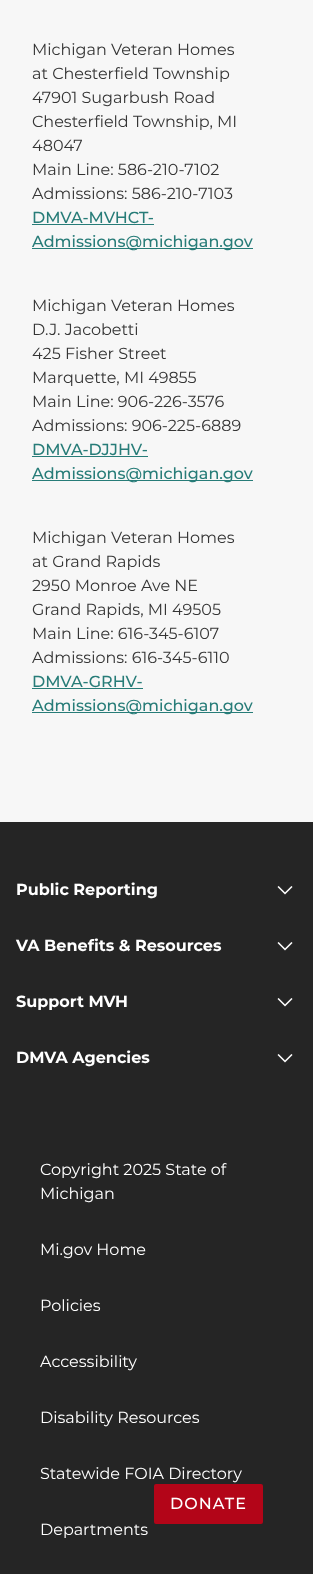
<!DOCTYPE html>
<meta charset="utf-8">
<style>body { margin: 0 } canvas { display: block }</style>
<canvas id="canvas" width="313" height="1574"></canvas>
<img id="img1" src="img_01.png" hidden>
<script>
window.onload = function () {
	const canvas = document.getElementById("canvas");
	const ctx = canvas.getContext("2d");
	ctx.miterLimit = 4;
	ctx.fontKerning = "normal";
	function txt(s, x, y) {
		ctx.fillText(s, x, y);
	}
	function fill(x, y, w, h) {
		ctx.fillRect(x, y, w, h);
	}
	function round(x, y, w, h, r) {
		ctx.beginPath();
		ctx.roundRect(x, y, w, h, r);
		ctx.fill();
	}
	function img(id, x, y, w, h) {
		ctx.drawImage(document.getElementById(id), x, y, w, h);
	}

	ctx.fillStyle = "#F7F7F7";
	fill(0, 0, 313, 1574);
	ctx.fillStyle = "#277C78";
	fill(32, 224, 122, 1);
	fill(32, 248, 221, 1);
	fill(32, 456, 116, 1);
	fill(32, 480, 221, 1);
	fill(32, 688, 111, 1);
	fill(32, 712, 221, 1);
	ctx.fillStyle = "#252525";
	fill(0, 822, 313, 752);
	ctx.fillStyle = "#B30518";
	round(154, 1484, 109, 40, 2);
	img("img1", 277, 886, 16, 9);
	img("img1", 277, 942, 16, 9);
	img("img1", 277, 998, 16, 9);
	img("img1", 277, 1054, 16, 9);
	ctx.font = "16px Montserrat";
	ctx.fillStyle = "#353535";
	txt("Michigan Veteran Homes", 32, 55);
	txt("at Chesterfield Township", 32, 79);
	txt("47901 Sugarbush Road", 32, 103);
	txt("Chesterfield Township, MI", 32, 127);
	txt("48047", 32, 151);
	txt("Main Line: 586-210-7102", 32, 175);
	txt("Admissions: 586-210-7103", 32, 199);
	ctx.font = "500 16px Montserrat";
	ctx.fillStyle = "#277C78";
	txt("DMVA-MVHCT-", 32, 223);
	txt("Admissions@michigan.gov", 32, 247);
	ctx.font = "16px Montserrat";
	ctx.fillStyle = "#353535";
	txt("Michigan Veteran Homes", 32, 311);
	txt("D.J. Jacobetti", 32, 335);
	txt("425 Fisher Street", 32, 359);
	txt("Marquette, MI 49855", 32, 383);
	txt("Main Line: 906-226-3576", 32, 407);
	txt("Admissions: 906-225-6889", 32, 431);
	ctx.font = "500 16px Montserrat";
	ctx.fillStyle = "#277C78";
	txt("DMVA-DJJHV-", 32, 455);
	txt("Admissions@michigan.gov", 32, 479);
	ctx.font = "16px Montserrat";
	ctx.fillStyle = "#353535";
	txt("Michigan Veteran Homes", 32, 543);
	txt("at Grand Rapids", 32, 567);
	txt("2950 Monroe Ave NE", 32, 591);
	txt("Grand Rapids, MI 49505", 32, 615);
	txt("Main Line: 616-345-6107", 32, 639);
	txt("Admissions: 616-345-6110", 32, 663);
	ctx.font = "500 16px Montserrat";
	ctx.fillStyle = "#277C78";
	txt("DMVA-GRHV-", 32, 687);
	txt("Admissions@michigan.gov", 32, 711);
	ctx.letterSpacing = "1px";
	ctx.fillStyle = "#FFFFFF";
	txt("DONATE", 170, 1509);
	ctx.letterSpacing = "0px";
	ctx.font = "bold 16px Montserrat";
	txt("Public Reporting", 16, 895);
	txt("VA Benefits & Resources", 16, 951);
	txt("Support MVH", 16, 1007);
	txt("DMVA Agencies", 16, 1063);
	ctx.font = "16px Montserrat";
	txt("Copyright 2025 State of", 40, 1175);
	txt("Michigan", 40, 1199);
	txt("Mi.gov Home", 40, 1255);
	txt("Policies", 40, 1311);
	txt("Accessibility", 40, 1367);
	txt("Disability Resources", 40, 1423);
	txt("Statewide FOIA Directory", 40, 1479);
	txt("Departments", 40, 1535);
};
</script>
